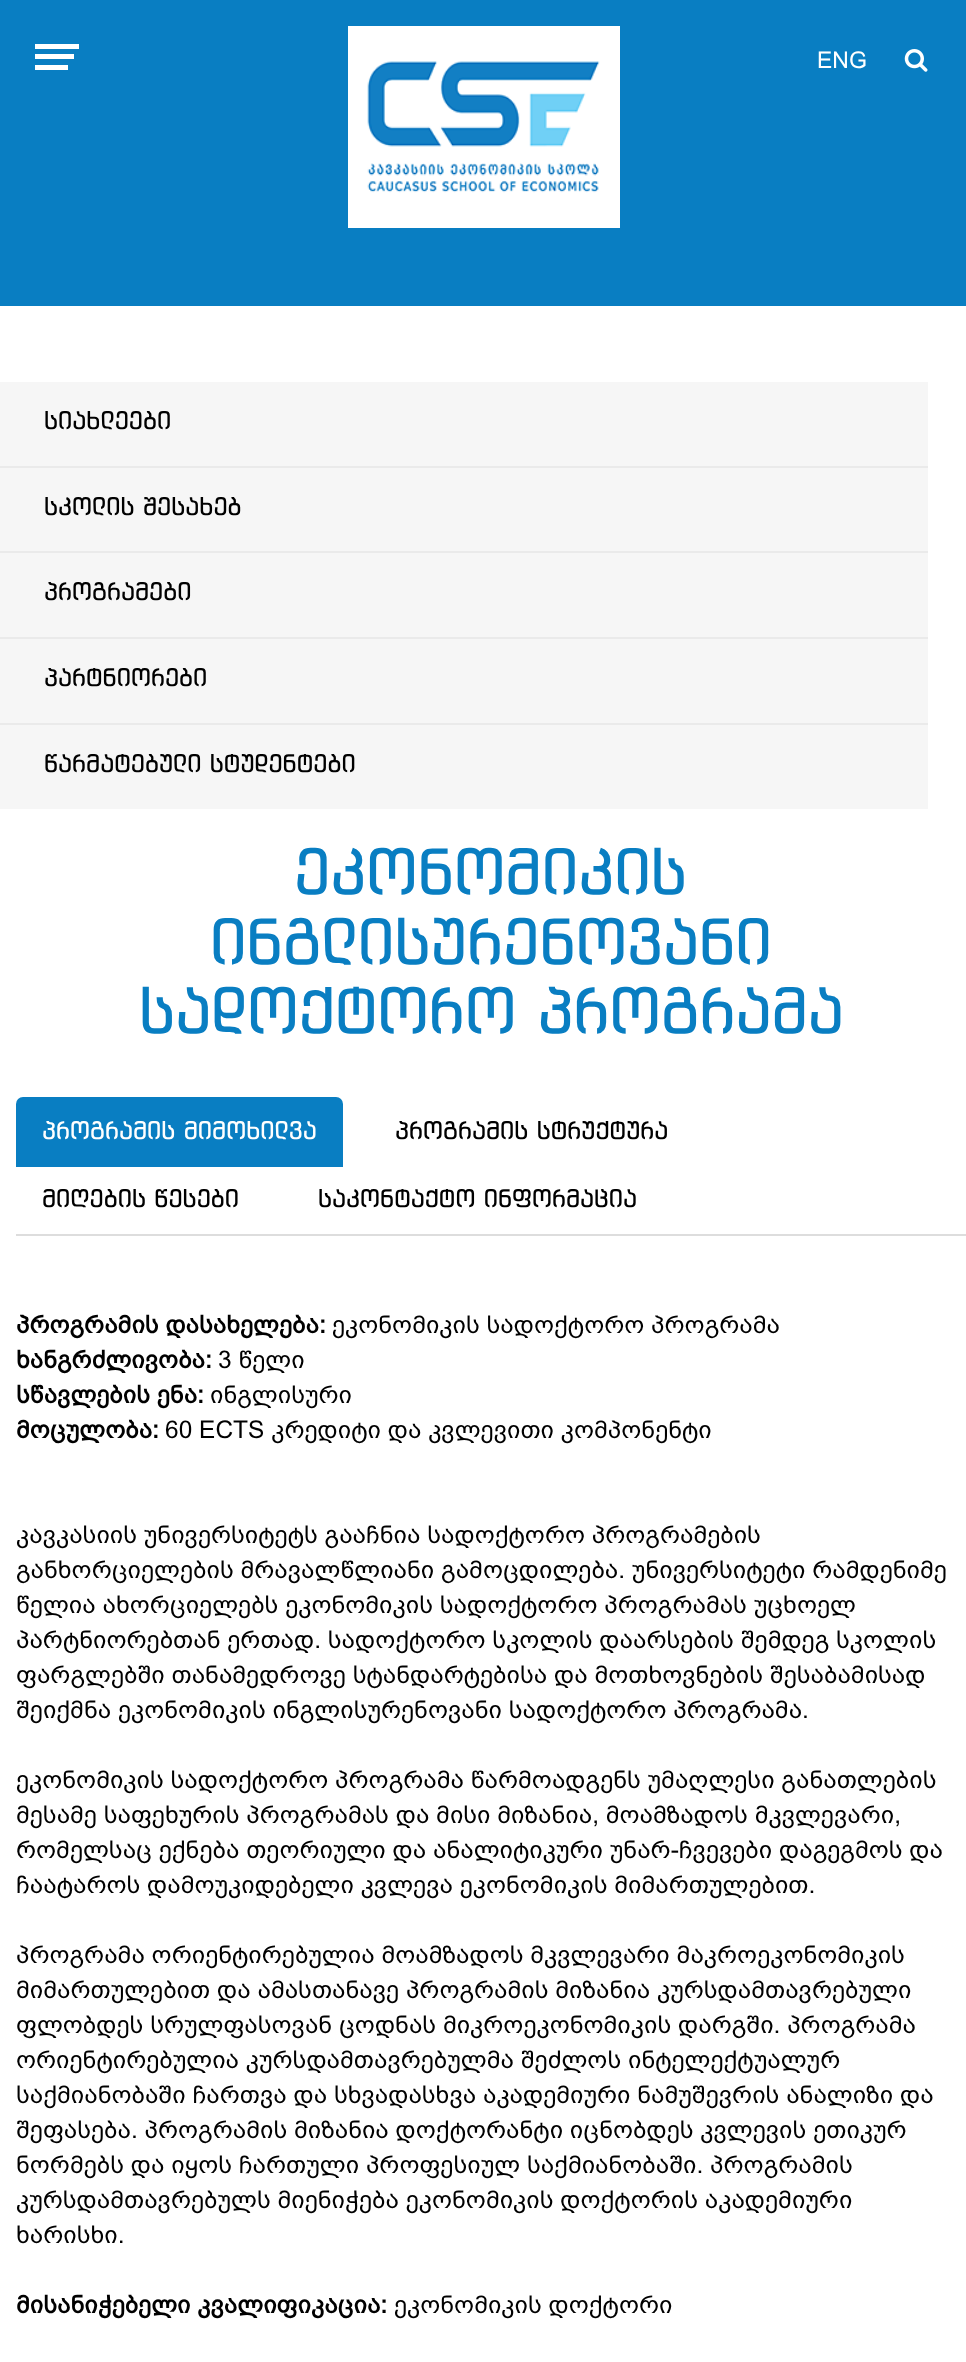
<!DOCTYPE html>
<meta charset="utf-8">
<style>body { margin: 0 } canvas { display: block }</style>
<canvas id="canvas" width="966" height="2362"></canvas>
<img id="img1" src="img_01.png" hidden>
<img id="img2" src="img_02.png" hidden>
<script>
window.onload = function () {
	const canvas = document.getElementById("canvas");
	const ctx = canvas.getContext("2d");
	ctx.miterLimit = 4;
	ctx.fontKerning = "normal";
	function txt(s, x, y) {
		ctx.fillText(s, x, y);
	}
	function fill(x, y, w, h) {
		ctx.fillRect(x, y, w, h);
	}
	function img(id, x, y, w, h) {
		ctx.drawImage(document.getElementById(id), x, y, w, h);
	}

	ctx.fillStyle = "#097EC2";
	fill(0, 0, 966, 2362);
	ctx.fillStyle = "#FFFFFF";
	fill(35, 44, 44, 5);
	fill(35, 54, 39, 5);
	fill(35, 65, 33, 5);
	fill(348, 26, 272, 202);
	img("img1", 367, 61, 233, 132);
	img("img2", 904, 49, 24, 23);
	fill(0, 306, 966, 2056);
	ctx.fillStyle = "#F6F6F6";
	fill(0, 382, 928, 427);
	ctx.fillStyle = "#EAEAEA";
	fill(0, 466, 928, 2);
	fill(0, 551, 928, 2);
	fill(0, 637, 928, 2);
	fill(0, 723, 928, 2);
	ctx.fillStyle = "#DDDDDD";
	fill(16, 1234, 950, 2);
	ctx.fillStyle = "#097EC2";
	ctx.beginPath();
	ctx.roundRect(16, 1097, 327, 70, [7, 7, 0, 0]);
	ctx.fill();
	ctx.font = "23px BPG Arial";
	ctx.fillStyle = "#FFFFFF";
	txt("ENG", 817, 68);
	ctx.font = "24.5px 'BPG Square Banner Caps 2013'";
	ctx.fillStyle = "#000000";
	txt("სიახლეები", 44, 429);
	txt("სკოლის შესახებ", 44, 515);
	txt("პროგრამები", 44, 600);
	txt("პარტნიორები", 44, 686);
	txt("წარმატებული სტუდენტები", 44, 772);
	ctx.font = "63px 'BPG Square Banner Caps 2013'";
	ctx.fillStyle = "#097EC2";
	txt("ეკონომიკის", 294, 894);
	txt("ინგლისურენოვანი", 210, 964);
	txt("სადოქტორო პროგრამა", 139, 1033);
	ctx.font = "24.5px 'BPG Square Banner Caps 2013'";
	ctx.fillStyle = "#FFFFFF";
	txt("პროგრამის მიმოხილვა", 42, 1139);
	ctx.fillStyle = "#000000";
	txt("პროგრამის სტრუქტურა", 395, 1139);
	txt("მიღების წესები", 42, 1207);
	txt("საკონტაქტო ინფორმაცია", 318, 1207);
	ctx.font = "bold 24.5px BPG Arial";
	txt("პროგრამის დასახელება:", 16, 1333);
	ctx.font = "24.5px BPG Arial";
	txt("ეკონომიკის სადოქტორო პროგრამა", 332, 1333);
	ctx.font = "bold 24.5px BPG Arial";
	txt("ხანგრძლივობა:", 16, 1368);
	ctx.font = "24.5px BPG Arial";
	txt("3 წელი", 218, 1368);
	ctx.font = "bold 24.5px BPG Arial";
	txt("სწავლების ენა:", 16, 1403);
	ctx.font = "24.5px BPG Arial";
	txt("ინგლისური", 210, 1403);
	ctx.font = "bold 24.5px BPG Arial";
	txt("მოცულობა:", 16, 1438);
	ctx.font = "24.5px BPG Arial";
	txt("60 ECTS კრედიტი და კვლევითი კომპონენტი", 165, 1438);
	txt("კავკასიის უნივერსიტეტს გააჩნია სადოქტორო პროგრამების", 16, 1543);
	txt("განხორციელების მრავალწლიანი გამოცდილება. უნივერსიტეტი რამდენიმე", 16, 1578);
	txt("წელია ახორციელებს ეკონომიკის სადოქტორო პროგრამას უცხოელ", 16, 1613);
	txt("პარტნიორებთან ერთად. სადოქტორო სკოლის დაარსების შემდეგ სკოლის", 16, 1648);
	txt("ფარგლებში თანამედროვე სტანდარტებისა და მოთხოვნების შესაბამისად", 16, 1683);
	txt("შეიქმნა ეკონომიკის ინგლისურენოვანი სადოქტორო პროგრამა.", 16, 1718);
	txt("ეკონომიკის სადოქტორო პროგრამა წარმოადგენს უმაღლესი განათლების", 16, 1788);
	txt("მესამე საფეხურის პროგრამას და მისი მიზანია, მოამზადოს მკვლევარი,", 16, 1823);
	txt("რომელსაც ექნება თეორიული და ანალიტიკური უნარ-ჩვევები დაგეგმოს და", 16, 1858);
	txt("ჩაატაროს დამოუკიდებელი კვლევა ეკონომიკის მიმართულებით.", 16, 1893);
	txt("პროგრამა ორიენტირებულია მოამზადოს მკვლევარი მაკროეკონომიკის", 16, 1963);
	txt("მიმართულებით და ამასთანავე პროგრამის მიზანია კურსდამთავრებული", 16, 1998);
	txt("ფლობდეს სრულფასოვან ცოდნას მიკროეკონომიკის დარგში. პროგრამა", 16, 2033);
	txt("ორიენტირებულია კურსდამთავრებულმა შეძლოს ინტელექტუალურ", 16, 2068);
	txt("საქმიანობაში ჩართვა და სხვადასხვა აკადემიური ნამუშევრის ანალიზი და", 16, 2103);
	txt("შეფასება. პროგრამის მიზანია დოქტორანტი იცნობდეს კვლევის ეთიკურ", 16, 2138);
	txt("ნორმებს და იყოს ჩართული პროფესიულ საქმიანობაში. პროგრამის", 16, 2173);
	txt("კურსდამთავრებულს მიენიჭება ეკონომიკის დოქტორის აკადემიური", 16, 2208);
	txt("ხარისხი.", 16, 2243);
	ctx.font = "bold 24.5px BPG Arial";
	txt("მისანიჭებელი კვალიფიკაცია:", 16, 2313);
	ctx.font = "24.5px BPG Arial";
	txt("ეკონომიკის დოქტორი", 394, 2313);
};
</script>
